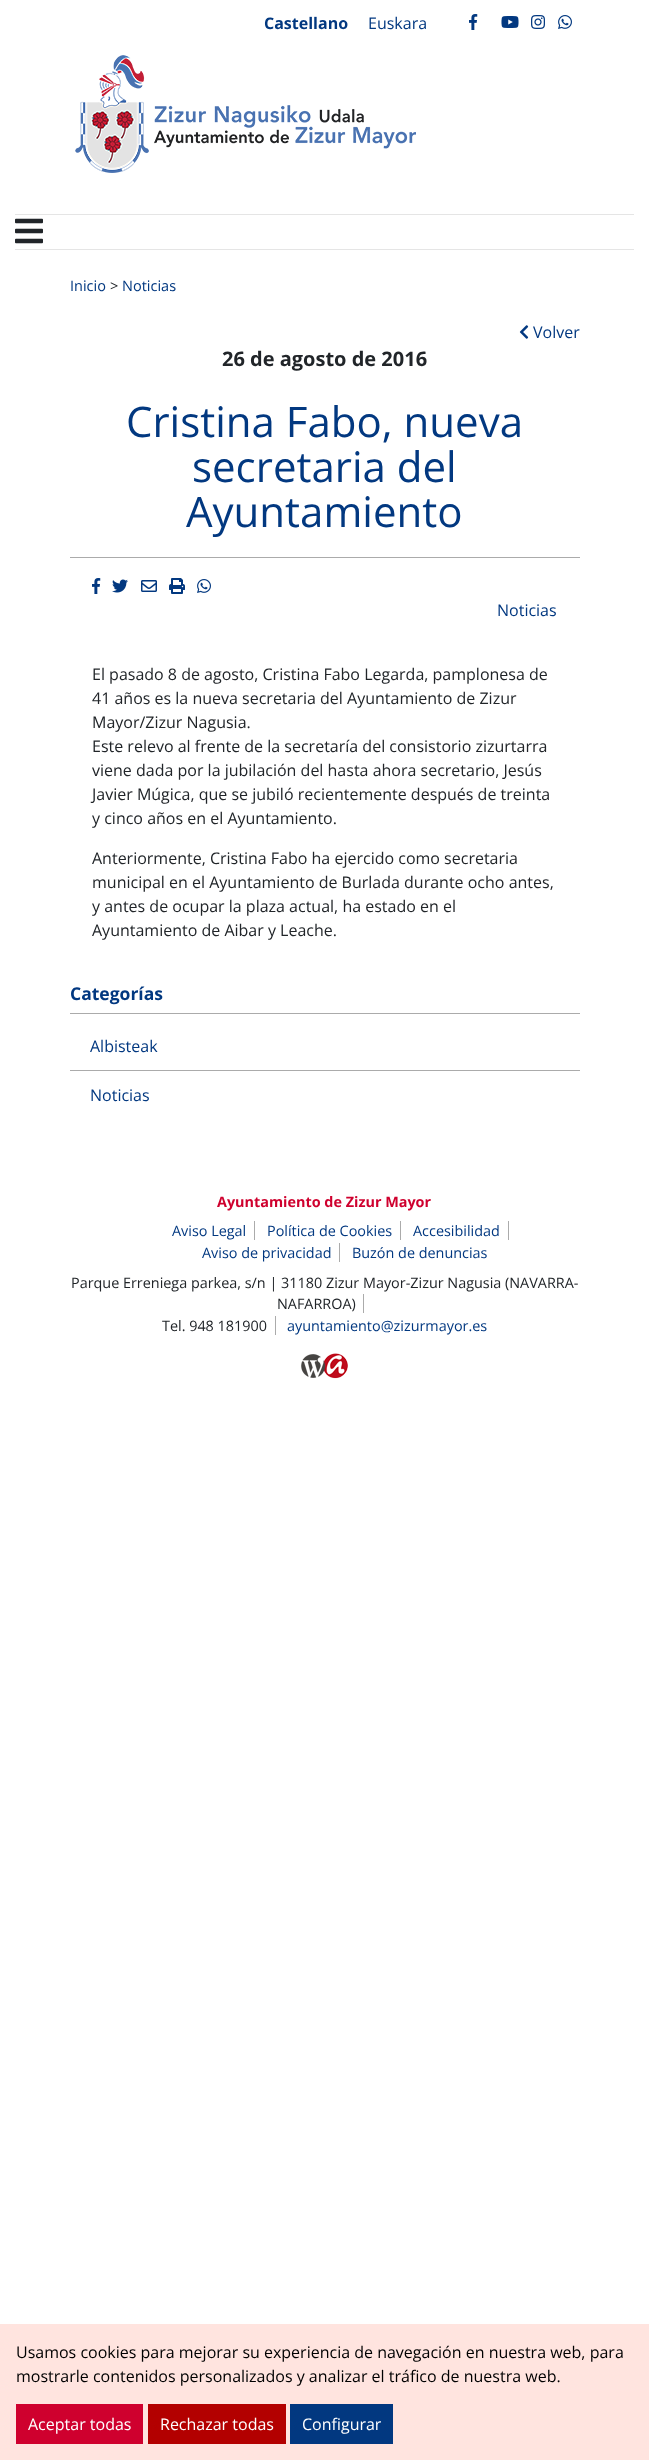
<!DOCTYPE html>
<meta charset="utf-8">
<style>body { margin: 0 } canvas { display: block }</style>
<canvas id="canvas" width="649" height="2460"></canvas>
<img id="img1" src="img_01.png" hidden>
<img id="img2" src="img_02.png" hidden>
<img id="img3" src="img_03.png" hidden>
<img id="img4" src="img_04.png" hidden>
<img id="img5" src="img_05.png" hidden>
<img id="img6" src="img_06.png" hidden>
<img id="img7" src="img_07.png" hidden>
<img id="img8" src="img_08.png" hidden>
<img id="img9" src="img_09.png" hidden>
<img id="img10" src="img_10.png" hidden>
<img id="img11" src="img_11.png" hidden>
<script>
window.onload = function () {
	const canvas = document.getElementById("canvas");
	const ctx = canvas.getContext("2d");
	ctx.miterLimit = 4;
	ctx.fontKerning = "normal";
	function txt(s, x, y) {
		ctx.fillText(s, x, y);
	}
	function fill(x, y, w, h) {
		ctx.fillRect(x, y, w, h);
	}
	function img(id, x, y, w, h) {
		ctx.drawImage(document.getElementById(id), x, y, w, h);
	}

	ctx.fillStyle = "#FFFFFF";
	fill(0, 0, 649, 2460);
	img("img1", 469, 14, 9, 16);
	img("img2", 501, 16, 18, 12);
	img("img3", 531, 15, 14, 14);
	img("img4", 558, 15, 14, 14);
	img("img5", 75, 55, 341, 118);
	ctx.fillStyle = "#E5E5E5";
	fill(15, 214, 619, 1);
	fill(15, 249, 619, 1);
	img("img6", 15, 218, 28, 26);
	img("img7", 519, 325, 10, 14);
	ctx.fillStyle = "#ABABAB";
	fill(70, 557, 510, 1);
	img("img1", 92, 578, 9, 16);
	img("img8", 112, 579, 16, 14);
	img("img9", 141, 580, 16, 12);
	img("img10", 169, 578, 16, 16);
	img("img4", 197, 579, 14, 14);
	fill(70, 1013, 510, 1);
	fill(70, 1070, 510, 1);
	fill(254, 1221, 1, 19);
	fill(400, 1221, 1, 19);
	fill(508, 1221, 1, 19);
	fill(339, 1243, 1, 19);
	fill(363, 1294, 1, 19);
	fill(275, 1316, 1, 19);
	img("img11", 301, 1353, 47, 26);
	ctx.fillStyle = "#FFE4DF";
	fill(0, 2324, 649, 136);
	ctx.fillStyle = "#CF002E";
	fill(16, 2404, 127, 40);
	ctx.fillStyle = "#B30000";
	fill(148, 2404, 138, 40);
	ctx.fillStyle = "#023880";
	fill(290, 2404, 103, 40);
	ctx.font = "bold 16px Open Sans";
	txt("Castellano", 264, 29);
	ctx.font = "16px Open Sans";
	txt("Euskara", 368, 29);
	ctx.font = "14.5px Open Sans";
	txt("Inicio", 70, 291);
	ctx.fillStyle = "#212529";
	txt(">", 110, 291);
	ctx.fillStyle = "#023880";
	txt("Noticias", 122, 291);
	ctx.font = "16px Open Sans";
	txt("Volver", 533, 338);
	ctx.font = "bold 20px Open Sans";
	ctx.fillStyle = "#212529";
	txt("26 de agosto de 2016", 222, 366);
	ctx.font = "42px Open Sans";
	ctx.fillStyle = "#023880";
	txt("Cristina Fabo, nueva", 126, 437);
	txt("secretaria del", 192, 482);
	txt("Ayuntamiento", 186, 527);
	ctx.font = "16px Open Sans";
	txt("Noticias", 497, 616);
	ctx.fillStyle = "#212529";
	txt("El pasado 8 de agosto, Cristina Fabo Legarda, pamplonesa de", 92, 680);
	txt("41 años es la nueva secretaria del Ayuntamiento de Zizur", 92, 704);
	txt("Mayor/Zizur Nagusia.", 92, 728);
	txt("Este relevo al frente de la secretaría del consistorio zizurtarra", 92, 752);
	txt("viene dada por la jubilación del hasta ahora secretario, Jesús", 92, 776);
	txt("Javier Múgica, que se jubiló recientemente después de treinta", 92, 800);
	txt("y cinco años en el Ayuntamiento.", 92, 824);
	txt("Anteriormente, Cristina Fabo ha ejercido como secretaria", 92, 864);
	txt("municipal en el Ayuntamiento de Burlada durante ocho antes,", 92, 888);
	txt("y antes de ocupar la plaza actual, ha estado en el", 92, 912);
	txt("Ayuntamiento de Aibar y Leache.", 92, 936);
	ctx.font = "bold 17.5px Open Sans";
	ctx.fillStyle = "#023880";
	txt("Categorías", 70, 1000);
	ctx.font = "16px Open Sans";
	txt("Albisteak", 90, 1052);
	txt("Noticias", 90, 1101);
	ctx.font = "bold 14.4px Open Sans";
	ctx.fillStyle = "#CF002E";
	txt("Ayuntamiento de Zizur Mayor", 217, 1207);
	ctx.font = "14.4px Open Sans";
	ctx.fillStyle = "#023880";
	txt("Aviso Legal", 172, 1236);
	txt("Política de Cookies", 267, 1236);
	txt("Accesibilidad", 413, 1236);
	txt("Aviso de privacidad", 202, 1258);
	txt("Buzón de denuncias", 352, 1258);
	ctx.fillStyle = "#212529";
	txt("Parque Erreniega parkea, s/n | 31180 Zizur Mayor-Zizur Nagusia (NAVARRA-", 71, 1288);
	txt("NAFARROA)", 277, 1309);
	txt("Tel. 948 181900", 162, 1331);
	ctx.fillStyle = "#023880";
	txt("ayuntamiento@zizurmayor.es", 287, 1331);
	ctx.font = "16px Open Sans";
	ctx.fillStyle = "#000000";
	txt("Usamos cookies para mejorar su experiencia de navegación en nuestra web, para", 16, 2358);
	txt("mostrarle contenidos personalizados y analizar el tráfico de nuestra web.", 16, 2382);
	ctx.fillStyle = "#FFFFFF";
	txt("Aceptar todas", 28, 2430);
	txt("Rechazar todas", 160, 2430);
	txt("Configurar", 302, 2430);
};
</script>
